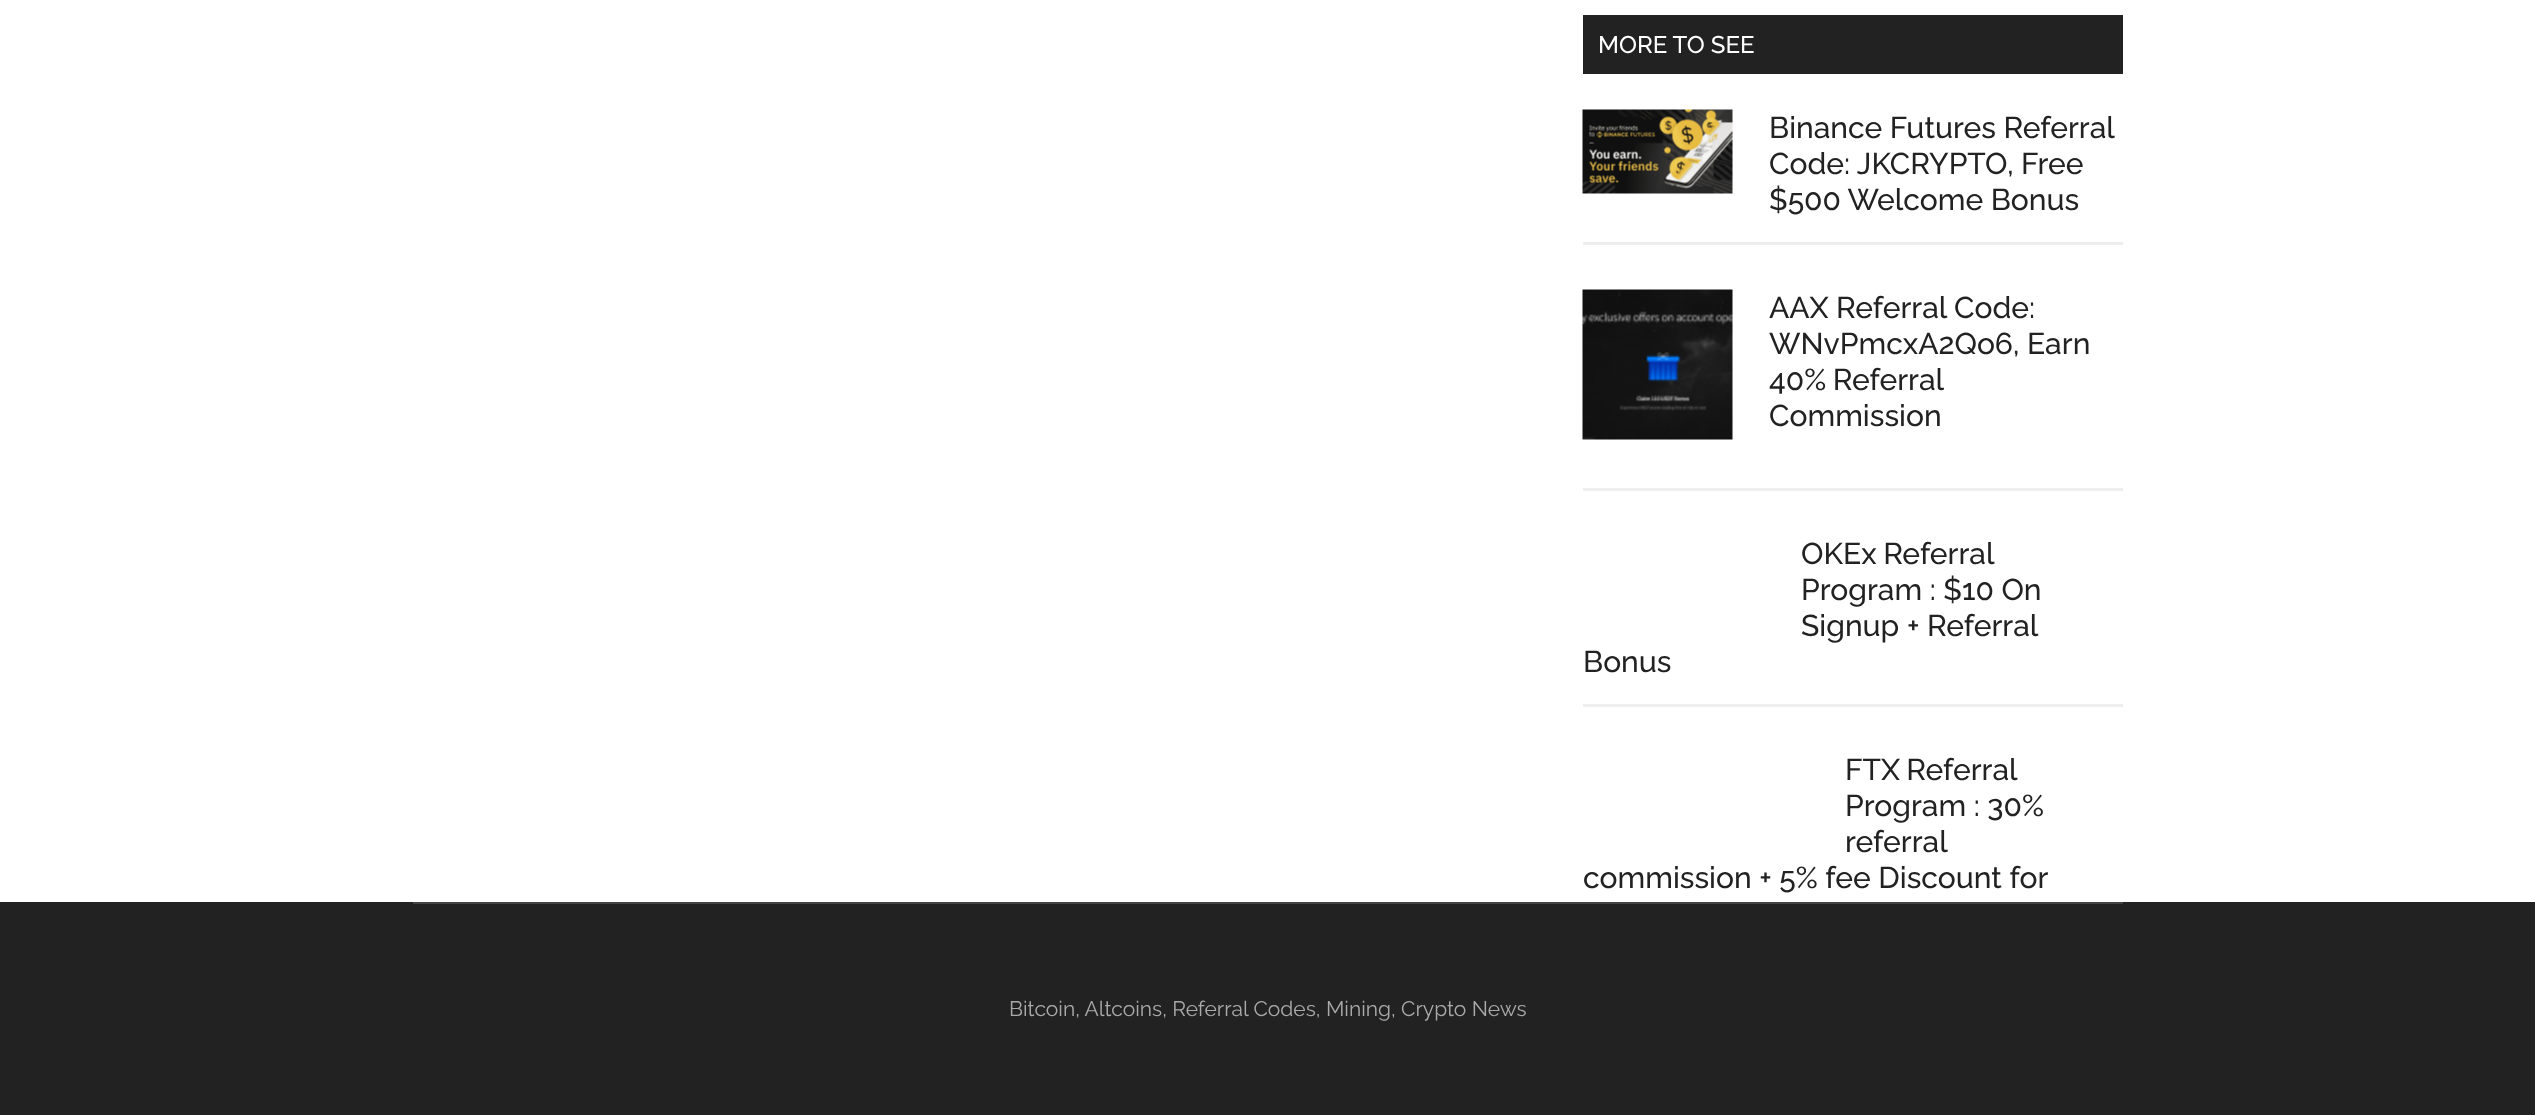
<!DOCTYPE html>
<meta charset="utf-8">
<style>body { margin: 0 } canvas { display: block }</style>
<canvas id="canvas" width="2535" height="1115"></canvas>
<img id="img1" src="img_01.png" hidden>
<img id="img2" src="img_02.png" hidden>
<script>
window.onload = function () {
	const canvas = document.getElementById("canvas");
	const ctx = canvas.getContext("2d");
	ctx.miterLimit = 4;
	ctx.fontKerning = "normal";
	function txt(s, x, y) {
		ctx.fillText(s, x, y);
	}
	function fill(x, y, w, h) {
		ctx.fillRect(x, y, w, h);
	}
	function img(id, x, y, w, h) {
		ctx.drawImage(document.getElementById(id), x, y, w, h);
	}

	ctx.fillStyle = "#FFFFFF";
	fill(0, 0, 2535, 1115);
	ctx.fillStyle = "#222222";
	fill(1583, 15, 540, 59);
	ctx.fillStyle = "#EEEEEE";
	fill(1583, 242, 540, 3);
	img("img1", 1582, 109, 151, 85);
	fill(1583, 488, 540, 3);
	img("img2", 1582, 289, 151, 151);
	fill(1583, 704, 540, 3);
	ctx.fillStyle = "#222222";
	fill(0, 902, 2535, 213);
	ctx.fillStyle = "#444444";
	fill(413, 902, 1710, 2);
	ctx.font = "500 24px Raleway";
	ctx.fillStyle = "#FFFFFF";
	txt("MORE TO SEE", 1598, 53);
	ctx.font = "500 30px Raleway";
	ctx.fillStyle = "#222222";
	txt("Binance Futures Referral", 1769, 138);
	txt("Code: JKCRYPTO, Free", 1769, 174);
	txt("$500 Welcome Bonus", 1769, 210);
	txt("AAX Referral Code:", 1769, 318);
	txt("WNvPmcxA2Qo6, Earn", 1769, 354);
	ctx.wordSpacing = "-1px";
	txt("40% Referral", 1769, 390);
	ctx.wordSpacing = "0px";
	txt("Commission", 1769, 426);
	ctx.wordSpacing = "-1px";
	txt("OKEx Referral", 1801, 564);
	ctx.wordSpacing = "0px";
	txt("Program : $10 On", 1801, 600);
	txt("Signup + Referral", 1801, 636);
	txt("Bonus", 1583, 672);
	ctx.wordSpacing = "-1px";
	txt("FTX Referral", 1845, 780);
	ctx.wordSpacing = "0px";
	txt("Program : 30%", 1845, 816);
	txt("referral", 1845, 852);
	txt("commission + 5% fee Discount for", 1583, 888);
	ctx.font = "21px Raleway";
	ctx.fillStyle = "#AAAAAA";
	txt("Bitcoin, Altcoins, Referral Codes, Mining, Crypto News", 1009, 1016);
};
</script>
